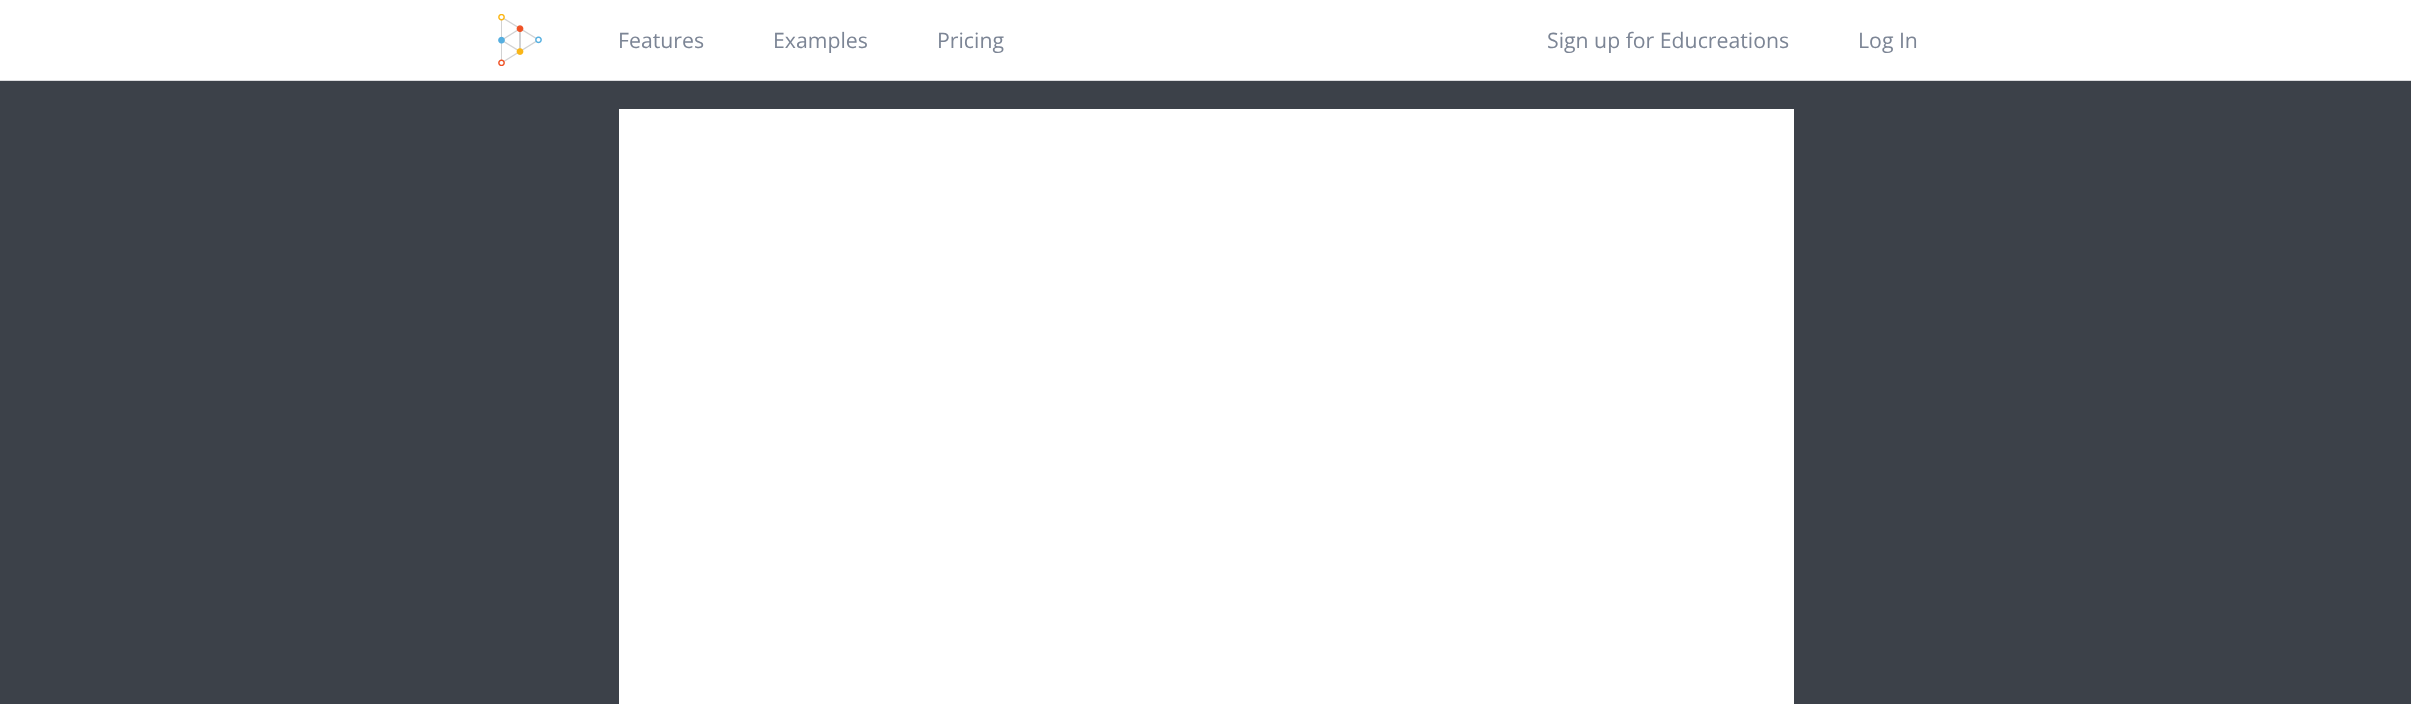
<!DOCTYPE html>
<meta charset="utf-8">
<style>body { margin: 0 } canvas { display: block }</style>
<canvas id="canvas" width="2411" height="704"></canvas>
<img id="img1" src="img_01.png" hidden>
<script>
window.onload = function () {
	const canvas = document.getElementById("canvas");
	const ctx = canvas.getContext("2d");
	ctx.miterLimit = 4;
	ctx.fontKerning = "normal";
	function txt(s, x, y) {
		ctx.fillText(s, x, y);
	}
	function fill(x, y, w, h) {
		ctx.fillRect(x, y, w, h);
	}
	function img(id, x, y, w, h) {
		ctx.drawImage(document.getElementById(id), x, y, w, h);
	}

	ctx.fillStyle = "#3C4149";
	fill(0, 0, 2411, 704);
	ctx.fillStyle = "#FFFFFF";
	fill(0, 0, 2411, 80);
	ctx.fillStyle = "#DBDBDE";
	fill(0, 80, 2411, 1);
	img("img1", 498, 14, 44, 52);
	ctx.fillStyle = "#FFFFFF";
	fill(619, 109, 1175, 595);
	ctx.font = "21.25px Open Sans";
	ctx.fillStyle = "#7C8595";
	txt("Features", 618, 48);
	txt("Examples", 773, 48);
	txt("Pricing", 937, 48);
	txt("Sign up for Educreations", 1547, 48);
	txt("Log In", 1858, 48);
};
</script>
